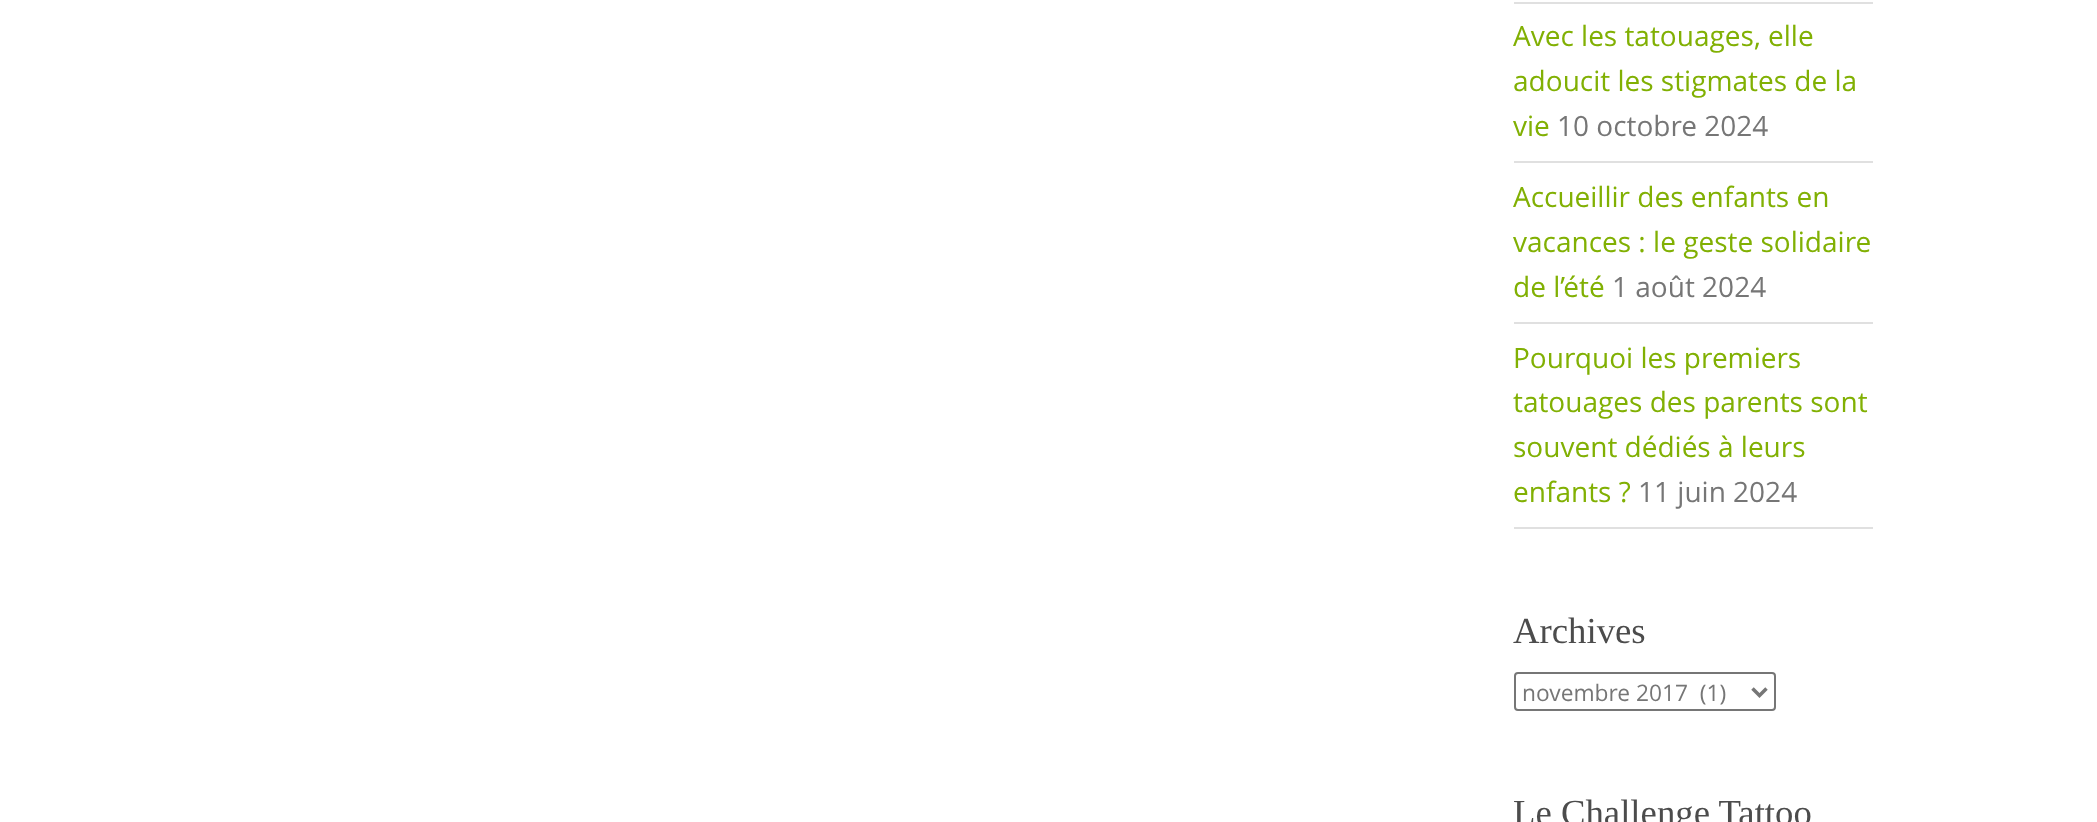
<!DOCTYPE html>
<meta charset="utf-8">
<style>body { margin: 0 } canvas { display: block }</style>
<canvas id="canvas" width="2097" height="822"></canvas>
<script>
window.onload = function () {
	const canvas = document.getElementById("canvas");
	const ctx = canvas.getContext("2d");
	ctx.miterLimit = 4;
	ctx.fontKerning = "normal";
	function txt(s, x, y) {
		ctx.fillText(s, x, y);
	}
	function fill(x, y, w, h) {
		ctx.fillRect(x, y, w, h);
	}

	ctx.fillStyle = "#FFFFFF";
	fill(0, 0, 2097, 822);
	ctx.fillStyle = "#E0E0E0";
	fill(1514, 2, 359, 2);
	fill(1514, 161, 359, 2);
	fill(1514, 322, 359, 2);
	fill(1514, 527, 359, 2);
	ctx.beginPath();
	ctx.roundRect(1515, 673, 260, 37, 3);
	ctx.strokeStyle = "#767676";
	ctx.lineWidth = 2;
	ctx.stroke();
	ctx.beginPath();
	ctx.moveTo(1752.5, 688.5);
	ctx.lineTo(1759.5, 695.5);
	ctx.lineTo(1766.5, 688.5);
	ctx.lineWidth = 3.5;
	ctx.stroke();
	ctx.font = "28px Open Sans";
	ctx.fillStyle = "#81B003";
	txt("Avec les tatouages, elle", 1513, 46);
	txt("adoucit les stigmates de la", 1513, 91);
	txt("vie", 1513, 136);
	ctx.fillStyle = "#767676";
	txt("10 octobre 2024", 1557, 136);
	ctx.fillStyle = "#81B003";
	txt("Accueillir des enfants en", 1513, 207);
	txt("vacances : le geste solidaire", 1513, 252);
	txt("de l’été", 1513, 297);
	ctx.fillStyle = "#767676";
	txt("1 août 2024", 1612, 297);
	ctx.fillStyle = "#81B003";
	txt("Pourquoi les premiers", 1513, 368);
	txt("tatouages des parents sont", 1513, 412);
	txt("souvent dédiés à leurs", 1513, 457);
	txt("enfants ?", 1513, 502);
	ctx.fillStyle = "#767676";
	txt("11 juin 2024", 1638, 502);
	ctx.font = "36.75px Liberation Serif";
	ctx.fillStyle = "#4C4C4C";
	txt("Archives", 1513, 643);
	ctx.font = "22.75px Open Sans";
	ctx.fillStyle = "#767676";
	txt("novembre 2017  (1)", 1522, 701);
	ctx.font = "36.75px Liberation Serif";
	ctx.fillStyle = "#4C4C4C";
	txt("Le Challenge Tattoo", 1513, 825);
};
</script>
